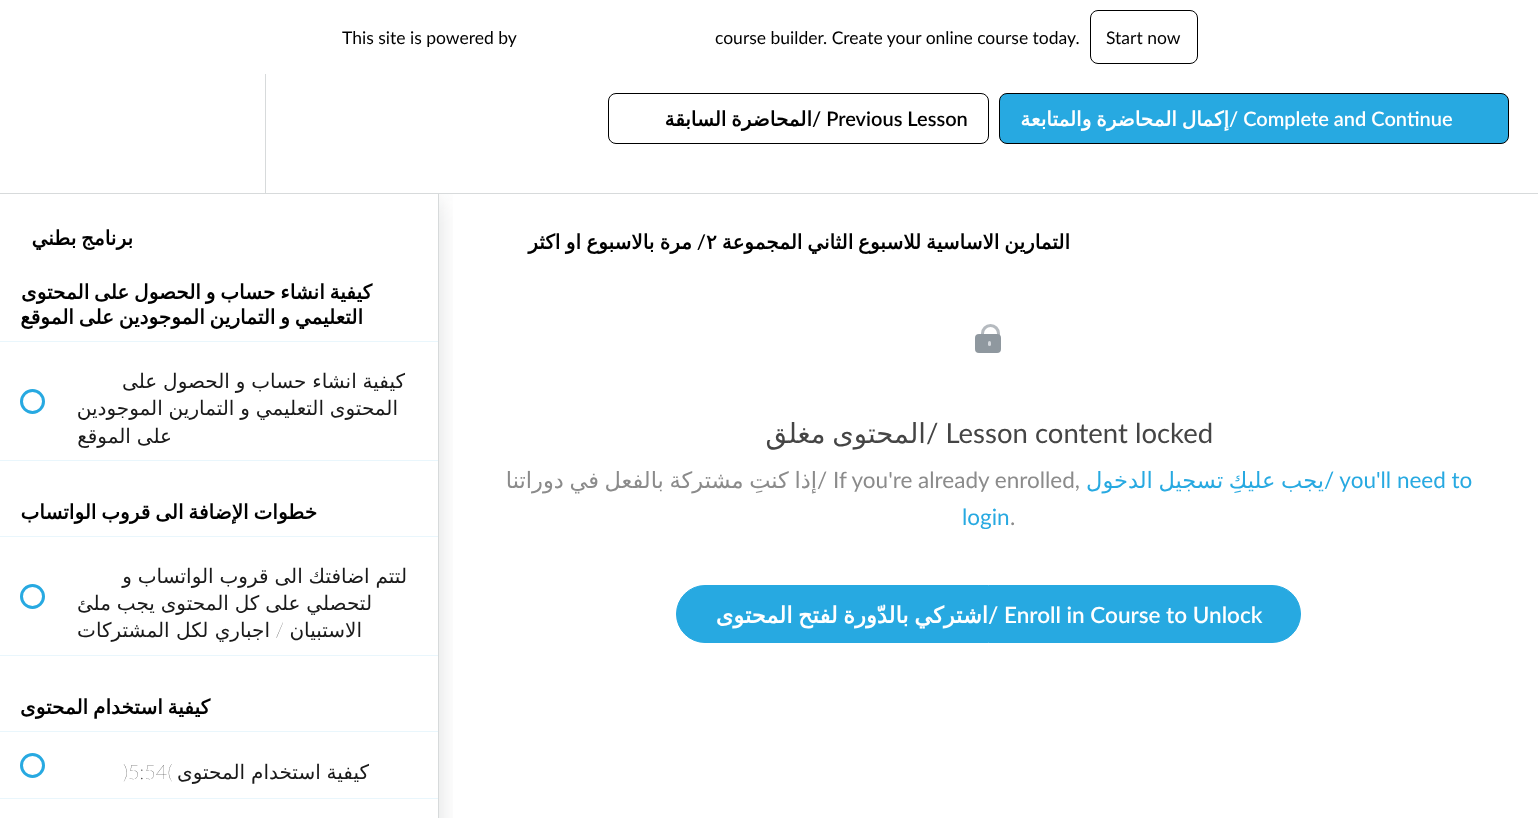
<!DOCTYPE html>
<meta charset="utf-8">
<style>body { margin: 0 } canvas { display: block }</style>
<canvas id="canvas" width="1538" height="818"></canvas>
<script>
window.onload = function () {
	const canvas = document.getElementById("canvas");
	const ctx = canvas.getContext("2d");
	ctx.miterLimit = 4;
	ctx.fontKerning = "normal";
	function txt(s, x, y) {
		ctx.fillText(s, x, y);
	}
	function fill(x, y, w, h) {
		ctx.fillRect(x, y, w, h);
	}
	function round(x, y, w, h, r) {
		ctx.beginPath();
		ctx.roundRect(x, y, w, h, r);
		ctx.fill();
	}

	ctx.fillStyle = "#FFFFFF";
	fill(0, 0, 1538, 818);
	ctx.save();
	ctx.beginPath();
	ctx.rect(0, 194, 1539, 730);
	ctx.clip();
	ctx.beginPath();
	ctx.rect(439, 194, 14, 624);
	ctx.clip();
	ctx.fillStyle = "rgba(32, 39, 45, 0.15)";
	ctx.filter = "blur(12.5px)";
	ctx.beginPath();
	ctx.rect(0, 201, 439, 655);
	ctx.fill();
	ctx.filter = "none";
	ctx.restore();
	ctx.fillStyle = "#D7DADB";
	fill(0, 193, 1538, 1);
	ctx.beginPath();
	ctx.roundRect(1090.5, 10.5, 107, 53, 7.5);
	ctx.strokeStyle = "#000000";
	ctx.stroke();
	ctx.fillStyle = "#27A9E1";
	ctx.beginPath();
	ctx.roundRect(999.5, 93.5, 509, 50, 7.5);
	ctx.fill();
	ctx.stroke();
	ctx.beginPath();
	ctx.roundRect(608.5, 93.5, 380, 50, 7.5);
	ctx.stroke();
	ctx.fillStyle = "#D7DADB";
	fill(265, 74, 1, 119);
	ctx.beginPath();
	ctx.roundRect(982.5, 325.5, 16, 24, 8);
	ctx.strokeStyle = "#B5BABF";
	ctx.lineWidth = 3;
	ctx.stroke();
	ctx.fillStyle = "#8F989F";
	round(975, 334, 26, 19, 4);
	ctx.fillStyle = "#D3D7DC";
	round(988, 341, 3, 5, 1.5);
	ctx.fillStyle = "#27A9E1";
	ctx.beginPath();
	ctx.roundRect(676.5, 585.5, 624, 57, 28.5);
	ctx.fill();
	ctx.strokeStyle = "#27A9E1";
	ctx.lineWidth = 1;
	ctx.stroke();
	ctx.fillStyle = "#D7DADB";
	fill(438, 194, 1, 624);
	ctx.fillStyle = "#E9F6FC";
	fill(0, 341, 438, 1);
	fill(0, 460, 438, 1);
	ctx.beginPath();
	ctx.arc(32.5, 401.5, 11, 0, Math.PI * 2);
	ctx.lineWidth = 3;
	ctx.stroke();
	fill(0, 536, 438, 1);
	fill(0, 655, 438, 1);
	ctx.beginPath();
	ctx.arc(32.5, 596.5, 11, 0, Math.PI * 2);
	ctx.stroke();
	fill(0, 731, 438, 1);
	fill(0, 798, 438, 1);
	ctx.beginPath();
	ctx.arc(32.5, 765.5, 11, 0, Math.PI * 2);
	ctx.stroke();
	ctx.font = "17.5px Lato";
	ctx.fillStyle = "#000000";
	txt("Start now", 1106, 44);
	txt("course builder. Create your online course today.", 715, 44);
	txt("This site is powered by", 342, 44);
	ctx.wordSpacing = "-1.5px";
	ctx.direction = "rtl";
	ctx.font = "bold 20px DejaVu Sans";
	ctx.fillStyle = "#FFFFFF";
	txt("إكمال المحاضرة والمتابعة", 1229, 126);
	ctx.wordSpacing = "0px";
	ctx.direction = "ltr";
	ctx.font = "600 20px Lato";
	txt("/ Complete and Continue", 1229, 126);
	ctx.fillStyle = "#000000";
	txt("/ Previous Lesson", 812, 126);
	ctx.wordSpacing = "-1.5px";
	ctx.direction = "rtl";
	ctx.font = "bold 20px DejaVu Sans";
	txt("المحاضرة السابقة", 812, 126);
	txt("التمارين الاساسية للاسبوع الثاني المجموعة", 1070, 249);
	ctx.wordSpacing = "0px";
	ctx.direction = "ltr";
	txt("٢", 706, 249);
	ctx.direction = "rtl";
	ctx.font = "600 20px Lato";
	txt("/", 706, 249);
	ctx.wordSpacing = "-1px";
	ctx.font = "bold 20px DejaVu Sans";
	txt("مرة بالاسبوع او اكثر", 692, 249);
	ctx.wordSpacing = "0px";
	ctx.direction = "ltr";
	ctx.font = "27.5px Lato";
	ctx.fillStyle = "#454545";
	txt("/ Lesson content locked", 926, 443);
	ctx.wordSpacing = "-2px";
	ctx.direction = "rtl";
	ctx.font = "27.5px DejaVu Sans";
	txt("المحتوى مغلق", 926, 443);
	ctx.wordSpacing = "-1.5px";
	ctx.font = "22.5px DejaVu Sans";
	ctx.fillStyle = "#27A9E1";
	txt("يجب عليكِ تسجيل الدخول", 1324, 488);
	ctx.wordSpacing = "0px";
	ctx.direction = "ltr";
	ctx.font = "22.5px Lato";
	txt("/ you'll need to", 1324, 488);
	ctx.wordSpacing = "-1.5px";
	ctx.direction = "rtl";
	ctx.font = "22.5px DejaVu Sans";
	ctx.fillStyle = "#8B8B8B";
	txt("إذا كنتِ مشتركة بالفعل في دوراتنا", 817, 488);
	ctx.wordSpacing = "0px";
	ctx.direction = "ltr";
	ctx.font = "22.5px Lato";
	txt("/ If you're already enrolled,", 817, 488);
	txt(".", 1010, 525);
	ctx.fillStyle = "#27A9E1";
	txt("login", 962, 525);
	ctx.wordSpacing = "-1.5px";
	ctx.direction = "rtl";
	ctx.font = "bold 22.5px DejaVu Sans";
	ctx.fillStyle = "#FFFFFF";
	txt("اشتركي بالدّورة لفتح المحتوى", 988, 623);
	ctx.wordSpacing = "0px";
	ctx.direction = "ltr";
	ctx.font = "600 22.5px Lato";
	txt("/ Enroll in Course to Unlock", 988, 623);
	ctx.wordSpacing = "-1.5px";
	ctx.direction = "rtl";
	ctx.font = "bold 20px DejaVu Sans";
	ctx.fillStyle = "#000000";
	txt("برنامج بطني", 133, 245);
	txt("كيفية انشاء حساب و الحصول على المحتوى", 372, 299);
	txt("التعليمي و التمارين الموجودين على الموقع", 363, 324);
	ctx.wordSpacing = "-0.5px";
	ctx.font = "20px DejaVu Sans";
	ctx.fillStyle = "#1A1A1A";
	txt("كيفية انشاء حساب و الحصول على", 405, 388);
	txt("المحتوى التعليمي و التمارين الموجودين", 398, 415);
	txt("على الموقع", 172, 443);
	ctx.wordSpacing = "-1.5px";
	ctx.font = "bold 20px DejaVu Sans";
	ctx.fillStyle = "#000000";
	txt("خطوات الإضافة الى قروب الواتساب", 317, 519);
	ctx.wordSpacing = "-0.5px";
	ctx.font = "20px DejaVu Sans";
	ctx.fillStyle = "#1A1A1A";
	txt("لتتم اضافتك الى قروب الواتساب و", 407, 583);
	txt("لتحصلي على كل المحتوى يجب ملئ", 372, 610);
	ctx.wordSpacing = "0px";
	txt("الاستبيان", 362, 637);
	ctx.font = "200 20px Lato";
	txt("/", 284, 637);
	ctx.font = "20px DejaVu Sans";
	txt("اجباري لكل المشتركات", 270, 637);
	ctx.wordSpacing = "-1.5px";
	ctx.font = "bold 20px DejaVu Sans";
	ctx.fillStyle = "#000000";
	txt("كيفية استخدام المحتوى", 210, 714);
	ctx.wordSpacing = "-0.5px";
	ctx.font = "20px DejaVu Sans";
	ctx.fillStyle = "#1A1A1A";
	txt("كيفية استخدام المحتوى", 369, 779);
	ctx.wordSpacing = "0px";
	ctx.direction = "ltr";
	ctx.font = "200 20px Lato";
	txt(")5:54(", 123, 779);
};
</script>
